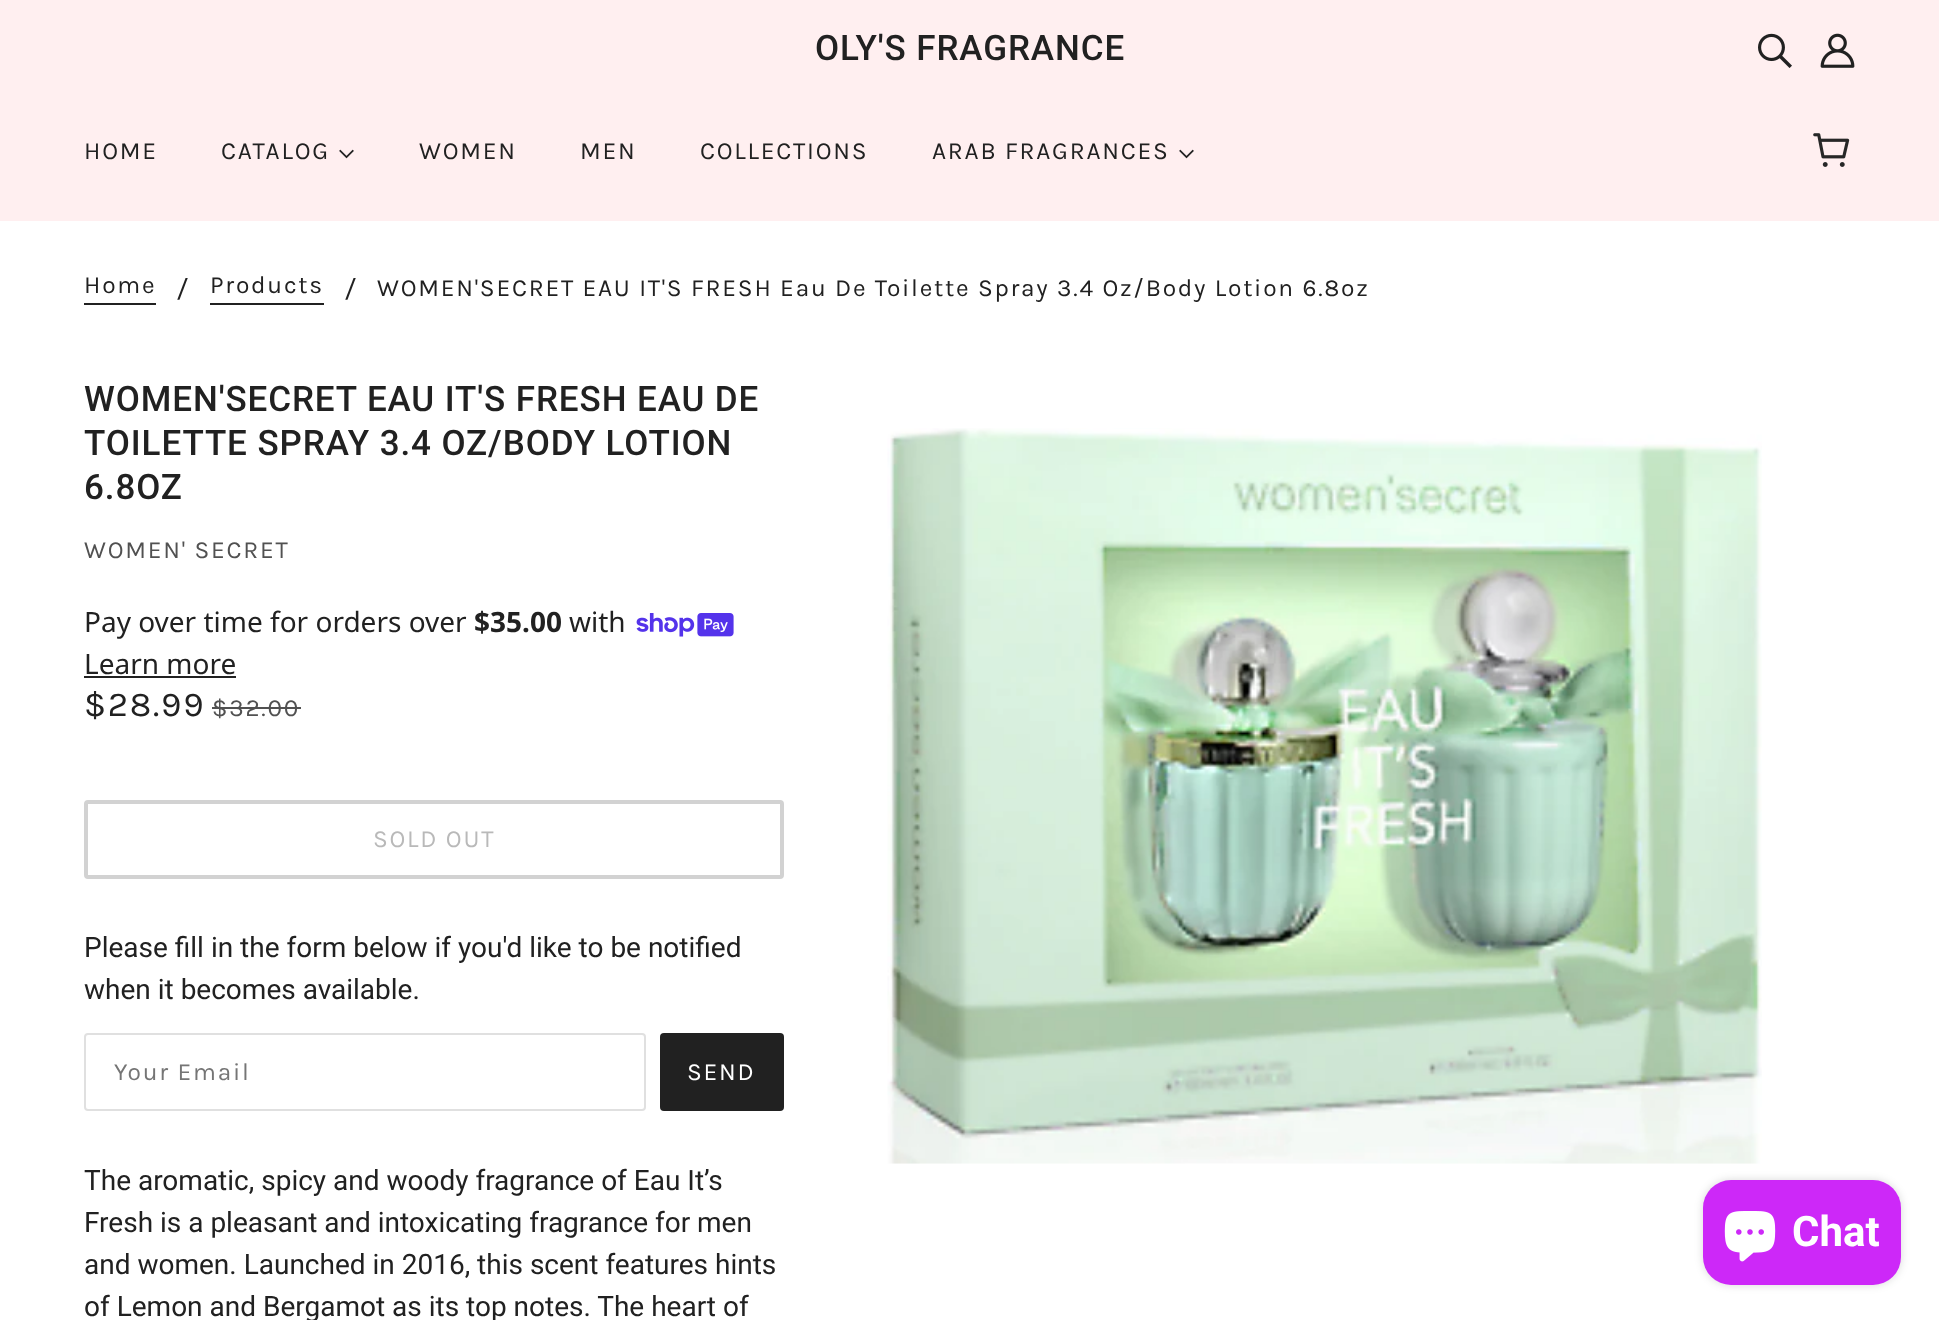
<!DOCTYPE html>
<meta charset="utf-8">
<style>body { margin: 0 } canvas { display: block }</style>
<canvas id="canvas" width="1939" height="1320"></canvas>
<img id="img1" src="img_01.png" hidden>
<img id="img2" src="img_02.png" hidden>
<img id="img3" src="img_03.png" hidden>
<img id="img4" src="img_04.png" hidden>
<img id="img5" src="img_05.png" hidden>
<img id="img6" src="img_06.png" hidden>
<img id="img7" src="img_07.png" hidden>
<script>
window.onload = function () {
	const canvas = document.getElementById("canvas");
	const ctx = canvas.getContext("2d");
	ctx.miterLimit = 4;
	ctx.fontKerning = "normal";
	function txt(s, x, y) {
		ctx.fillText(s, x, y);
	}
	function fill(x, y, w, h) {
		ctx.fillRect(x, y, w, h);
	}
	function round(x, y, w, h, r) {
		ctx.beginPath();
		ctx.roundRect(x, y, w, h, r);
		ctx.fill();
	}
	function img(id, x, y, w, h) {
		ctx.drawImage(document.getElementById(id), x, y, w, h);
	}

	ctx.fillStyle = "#FFFFFF";
	fill(0, 0, 1939, 1320);
	ctx.fillStyle = "#FFEFF0";
	fill(0, 0, 1939, 221);
	img("img1", 1758, 33, 34, 35);
	img("img2", 1820, 33, 35, 35);
	img("img3", 339, 149, 15, 10);
	img("img3", 1179, 149, 15, 10);
	img("img4", 1813, 133, 37, 34);
	ctx.fillStyle = "#212121";
	fill(84, 303, 72, 2);
	fill(210, 303, 114, 2);
	img("img5", 887, 428, 875, 736);
	img("img6", 636, 613, 98, 24);
	fill(84, 676, 152, 2);
	ctx.fillStyle = "#515151";
	fill(212, 707, 89, 2);
	ctx.beginPath();
	ctx.roundRect(86, 802, 696, 75, 2);
	ctx.strokeStyle = "#D2D2D2";
	ctx.lineWidth = 4;
	ctx.stroke();
	ctx.beginPath();
	ctx.roundRect(85, 1034, 560, 76, 3);
	ctx.strokeStyle = "#E0E0E0";
	ctx.lineWidth = 2;
	ctx.stroke();
	ctx.fillStyle = "#212121";
	round(660, 1033, 124, 78, 4);
	ctx.fillStyle = "rgba(0, 0, 0, 0.15)";
	ctx.filter = "blur(4.5px)";
	ctx.beginPath();
	ctx.roundRect(1703, 1180, 198, 105, 28);
	ctx.fill();
	ctx.filter = "none";
	ctx.fillStyle = "#CD28F8";
	round(1703, 1180, 198, 105, 28);
	img("img7", 1724, 1211, 52, 51);
	ctx.letterSpacing = "0.9px";
	ctx.font = "500 35px Roboto";
	ctx.fillStyle = "#212121";
	txt("OLY'S FRAGRANCE", 815, 60);
	ctx.letterSpacing = "1.75px";
	ctx.font = "24.5px Karla";
	txt("HOME", 84, 159);
	txt("CATALOG", 221, 159);
	txt("WOMEN", 419, 159);
	txt("MEN", 580, 159);
	txt("COLLECTIONS", 700, 159);
	txt("ARAB FRAGRANCES", 932, 159);
	txt("Home", 84, 293);
	ctx.letterSpacing = "0px";
	ctx.font = "28px Roboto";
	txt("/", 177, 298);
	ctx.letterSpacing = "1.75px";
	ctx.font = "24.5px Karla";
	txt("Products", 210, 293);
	ctx.letterSpacing = "0px";
	ctx.font = "28px Roboto";
	txt("/", 345, 298);
	ctx.letterSpacing = "1.75px";
	ctx.font = "24.5px Karla";
	txt("WOMEN'SECRET EAU IT'S FRESH Eau De Toilette Spray 3.4 Oz/Body Lotion 6.8oz", 377, 296);
	ctx.letterSpacing = "0.9px";
	ctx.font = "500 35px Roboto";
	txt("WOMEN'SECRET EAU IT'S FRESH EAU DE", 84, 411);
	txt("TOILETTE SPRAY 3.4 OZ/BODY LOTION", 84, 455);
	txt("6.8OZ", 84, 499);
	ctx.letterSpacing = "1.75px";
	ctx.font = "24.5px Karla";
	ctx.fillStyle = "#515151";
	txt("WOMEN' SECRET", 84, 558);
	ctx.letterSpacing = "0px";
	ctx.font = "28px Noto Sans";
	ctx.fillStyle = "#212121";
	txt("Pay over time for orders over", 84, 632);
	ctx.font = "bold 28px Noto Sans";
	txt("$35.00", 474, 632);
	ctx.font = "28px Noto Sans";
	txt("with", 569, 632);
	txt("Learn more", 84, 674);
	ctx.letterSpacing = "1.75px";
	ctx.font = "35px Karla";
	txt("$28.99", 84, 716);
	ctx.font = "24.5px Karla";
	ctx.fillStyle = "#515151";
	txt("$32.00", 212, 716);
	ctx.fillStyle = "#B9B9B9";
	txt("SOLD OUT", 373, 847);
	ctx.letterSpacing = "0px";
	ctx.font = "28px Roboto";
	ctx.fillStyle = "#212121";
	txt("Please fill in the form below if you'd like to be notified", 84, 957);
	txt("when it becomes available.", 84, 999);
	ctx.letterSpacing = "1.75px";
	ctx.font = "24.5px Karla";
	ctx.fillStyle = "#757575";
	txt("Your Email", 114, 1080);
	ctx.fillStyle = "#FFFFFF";
	txt("SEND", 687, 1080);
	ctx.letterSpacing = "0px";
	ctx.font = "28px Roboto";
	ctx.fillStyle = "#212121";
	txt("The aromatic, spicy and woody fragrance of Eau It’s", 84, 1190);
	txt("Fresh is a pleasant and intoxicating fragrance for men", 84, 1232);
	txt("and women. Launched in 2016, this scent features hints", 84, 1274);
	txt("of Lemon and Bergamot as its top notes. The heart of", 84, 1316);
	ctx.font = "bold 42px Roboto";
	ctx.fillStyle = "#FFFFFF";
	txt("Chat", 1792, 1246);
};
</script>
